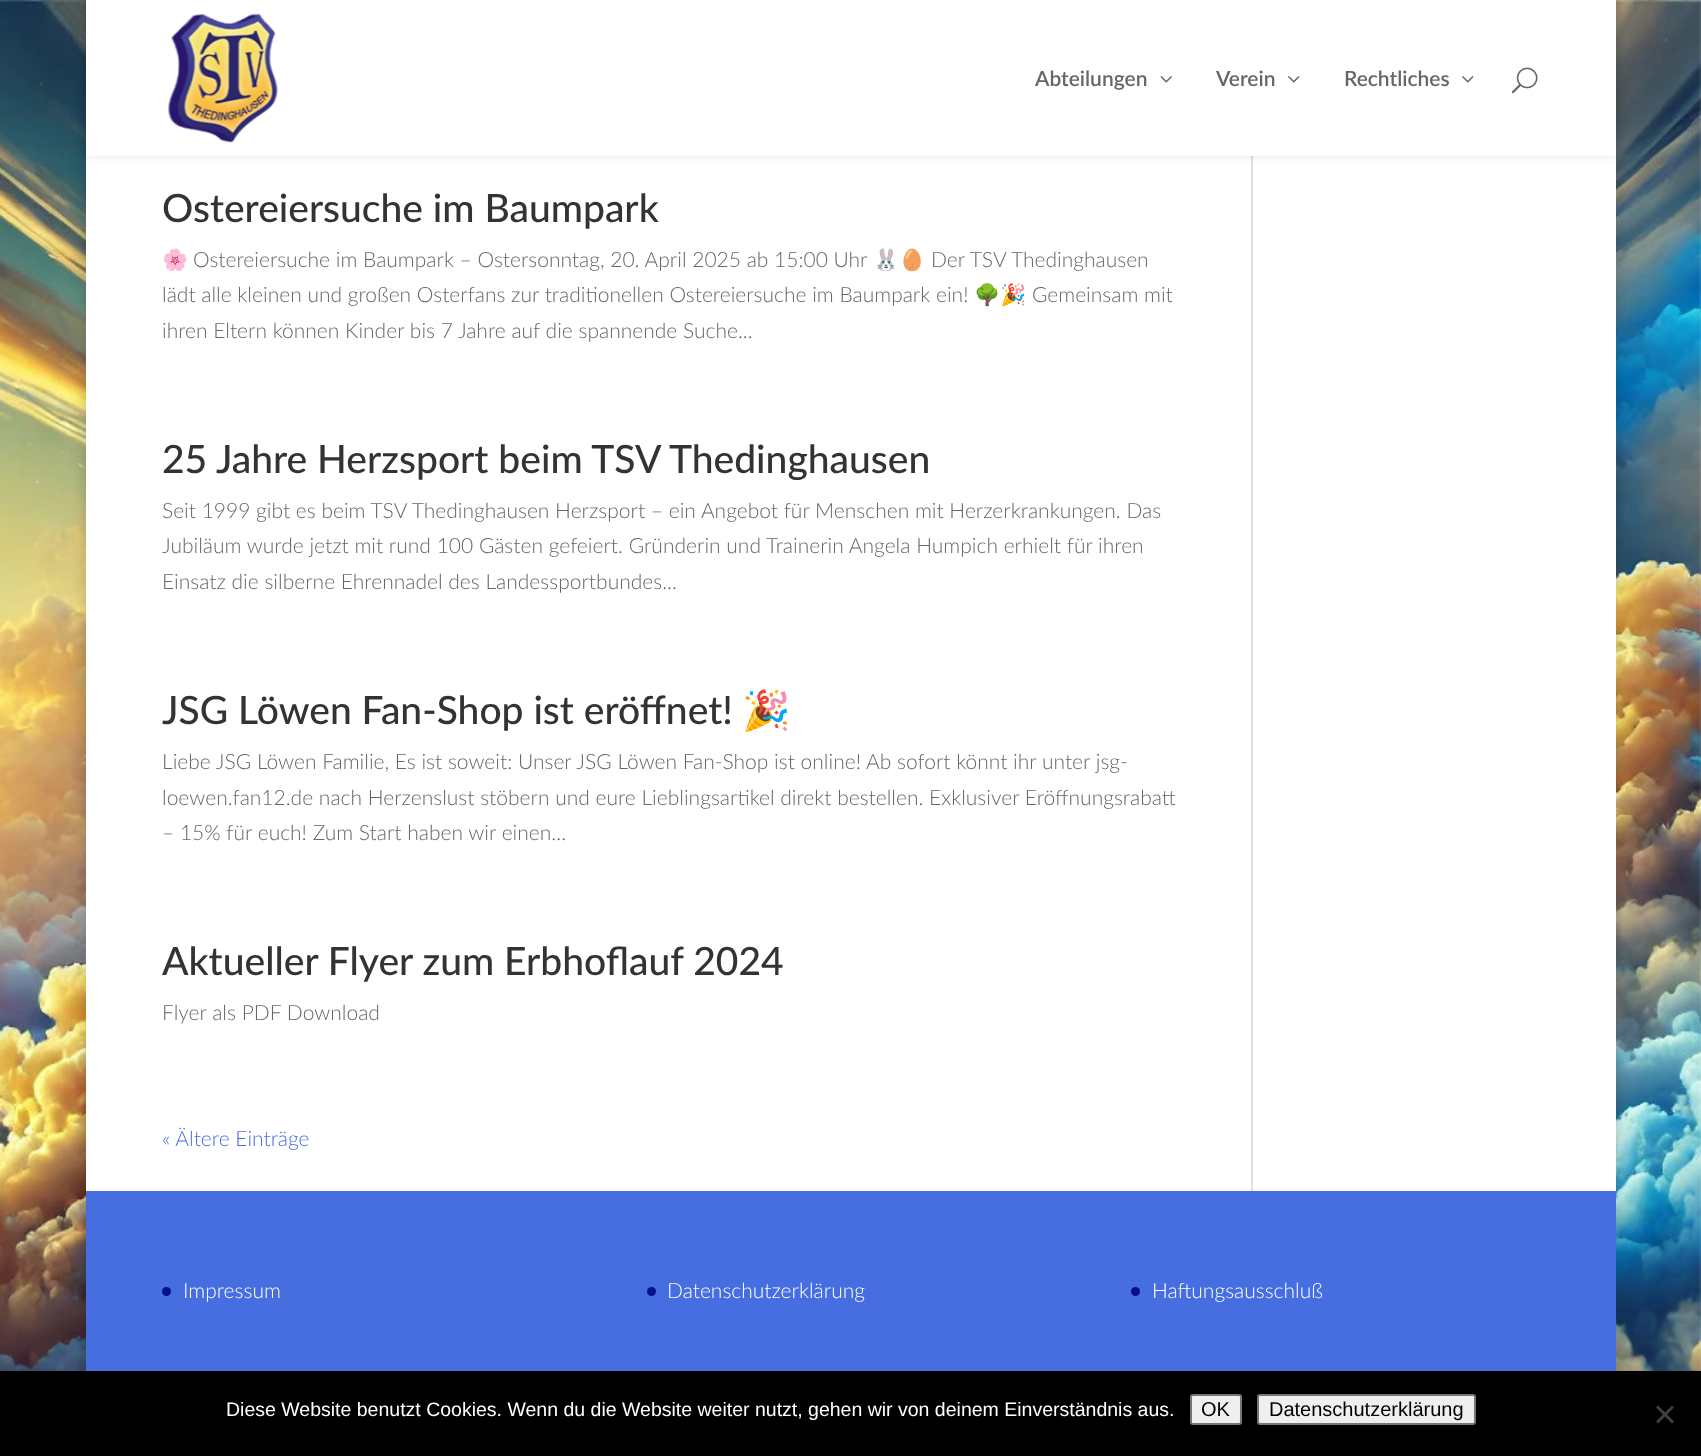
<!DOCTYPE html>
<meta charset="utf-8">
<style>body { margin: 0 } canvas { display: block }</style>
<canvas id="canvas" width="1701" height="1456"></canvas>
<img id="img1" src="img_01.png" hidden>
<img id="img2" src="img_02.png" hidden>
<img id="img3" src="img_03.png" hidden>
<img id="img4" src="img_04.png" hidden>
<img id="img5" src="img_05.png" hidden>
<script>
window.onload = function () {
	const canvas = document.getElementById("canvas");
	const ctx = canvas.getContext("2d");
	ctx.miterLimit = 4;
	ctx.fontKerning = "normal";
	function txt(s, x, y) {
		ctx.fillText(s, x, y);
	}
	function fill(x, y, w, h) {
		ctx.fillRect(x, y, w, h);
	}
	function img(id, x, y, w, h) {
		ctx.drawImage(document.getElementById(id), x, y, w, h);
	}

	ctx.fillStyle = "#FFFFFF";
	fill(0, 0, 1701, 1456);
	img("img1", 0, 0, 1701, 1371);
	ctx.fillStyle = "rgba(0, 0, 0, 0.2)";
	ctx.filter = "blur(7.5px)";
	ctx.beginPath();
	ctx.rect(86, -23, 1530, 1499);
	ctx.fill();
	ctx.filter = "none";
	ctx.fillStyle = "#FFFFFF";
	fill(86, 156, 1530, 1035);
	ctx.fillStyle = "#E2E2E2";
	fill(1251, 156, 2, 1035);
	ctx.fillStyle = "rgba(0, 0, 0, 0.1)";
	ctx.filter = "blur(5px)";
	ctx.beginPath();
	ctx.rect(86, 0, 1530, 156);
	ctx.fill();
	ctx.filter = "none";
	ctx.fillStyle = "#FFFFFF";
	fill(86, 0, 1530, 156);
	img("img2", 168, 13, 110, 130);
	img("img3", 1160, 76, 12, 7);
	img("img4", 1288, 76, 12, 7);
	img("img4", 1462, 76, 12, 7);
	img("img5", 1511, 67, 27, 27);
	ctx.fillStyle = "#466EE1";
	fill(86, 1191, 1530, 180);
	ctx.fillStyle = "#080F8C";
	ctx.beginPath();
	ctx.arc(166.5, 1291.5, 4.5, 0, Math.PI * 2);
	ctx.fill();
	ctx.beginPath();
	ctx.arc(651.5, 1291.5, 4.5, 0, Math.PI * 2);
	ctx.fill();
	ctx.beginPath();
	ctx.arc(1135.5, 1291.5, 4.5, 0, Math.PI * 2);
	ctx.fill();
	ctx.fillStyle = "#000000";
	fill(0, 1371, 1701, 85);
	ctx.fillStyle = "#EFEFEF";
	ctx.beginPath();
	ctx.roundRect(1191, 1395, 50, 29, 2);
	ctx.fill();
	ctx.strokeStyle = "#767676";
	ctx.lineWidth = 2;
	ctx.stroke();
	ctx.beginPath();
	ctx.roundRect(1258, 1395, 217, 29, 2);
	ctx.fill();
	ctx.stroke();
	ctx.fillStyle = "#404040";
	ctx.beginPath();
	ctx.moveTo(1672, 1405.5);
	ctx.lineTo(1674, 1407.5);
	ctx.lineTo(1658, 1423.5);
	ctx.lineTo(1656, 1421.5);
	ctx.closePath();
	ctx.fill();
	ctx.beginPath();
	ctx.moveTo(1656, 1407.5);
	ctx.lineTo(1658, 1405.5);
	ctx.lineTo(1674, 1421.5);
	ctx.lineTo(1672, 1423.5);
	ctx.closePath();
	ctx.fill();
	ctx.font = "600 21px Lato";
	ctx.fillStyle = "#666666";
	txt("Abteilungen", 1035, 86);
	txt("Verein", 1216, 86);
	txt("Rechtliches", 1344, 86);
	ctx.font = "500 39px Lato";
	ctx.fillStyle = "#333333";
	txt("Ostereiersuche im Baumpark", 162, 222);
	ctx.font = "21px Noto Color Emoji";
	ctx.fillStyle = "#666666";
	txt("🌸", 162, 267);
	ctx.font = "300 21px Lato";
	txt("Ostereiersuche im Baumpark – Ostersonntag, 20. April 2025 ab 15:00 Uhr", 193, 267);
	ctx.font = "21px Noto Color Emoji";
	txt("🐰🥚", 873, 267);
	ctx.font = "300 21px Lato";
	txt("Der TSV Thedinghausen", 931, 267);
	txt("lädt alle kleinen und großen Osterfans zur traditionellen Ostereiersuche im Baumpark ein!", 162, 302);
	ctx.font = "21px Noto Color Emoji";
	txt("🌳🎉", 974, 302);
	ctx.font = "300 21px Lato";
	txt("Gemeinsam mit", 1032, 302);
	txt("ihren Eltern können Kinder bis 7 Jahre auf die spannende Suche...", 162, 338);
	ctx.font = "500 39px Lato";
	ctx.fillStyle = "#333333";
	txt("25 Jahre Herzsport beim TSV Thedinghausen", 162, 473);
	ctx.font = "300 21px Lato";
	ctx.fillStyle = "#666666";
	txt("Seit 1999 gibt es beim TSV Thedinghausen Herzsport – ein Angebot für Menschen mit Herzerkrankungen. Das", 162, 518);
	txt("Jubiläum wurde jetzt mit rund 100 Gästen gefeiert. Gründerin und Trainerin Angela Humpich erhielt für ihren", 162, 553);
	txt("Einsatz die silberne Ehrennadel des Landessportbundes...", 162, 589);
	ctx.font = "500 39px Lato";
	ctx.fillStyle = "#333333";
	txt("JSG Löwen Fan-Shop ist eröffnet!", 162, 724);
	ctx.font = "39px Noto Color Emoji";
	txt("🎉", 742, 724);
	ctx.font = "300 21px Lato";
	ctx.fillStyle = "#666666";
	txt("Liebe JSG Löwen Familie, Es ist soweit: Unser JSG Löwen Fan-Shop ist online! Ab sofort könnt ihr unter jsg-", 162, 769);
	txt("loewen.fan12.de nach Herzenslust stöbern und eure Lieblingsartikel direkt bestellen. Exklusiver Eröffnungsrabatt", 162, 805);
	txt("– 15% für euch! Zum Start haben wir einen...", 162, 840);
	ctx.font = "500 39px Lato";
	ctx.fillStyle = "#333333";
	txt("Aktueller Flyer zum Erbhoflauf 2024", 162, 975);
	ctx.font = "300 21px Lato";
	ctx.fillStyle = "#666666";
	txt("Flyer als PDF Download", 162, 1020);
	ctx.fillStyle = "#466EE1";
	txt("« Ältere Einträge", 162, 1146);
	ctx.fillStyle = "#FFFFFF";
	txt("Impressum", 183, 1298);
	txt("Datenschutzerklärung", 667, 1298);
	txt("Haftungsausschluß", 1152, 1298);
	ctx.font = "19.5px Liberation Sans";
	txt("Diese Website benutzt Cookies. Wenn du die Website weiter nutzt, gehen wir von deinem Einverständnis aus.", 226, 1416);
	ctx.font = "20px Liberation Sans";
	ctx.fillStyle = "#000000";
	txt("OK", 1201, 1416);
	txt("Datenschutzerklärung", 1269, 1416);
};
</script>
